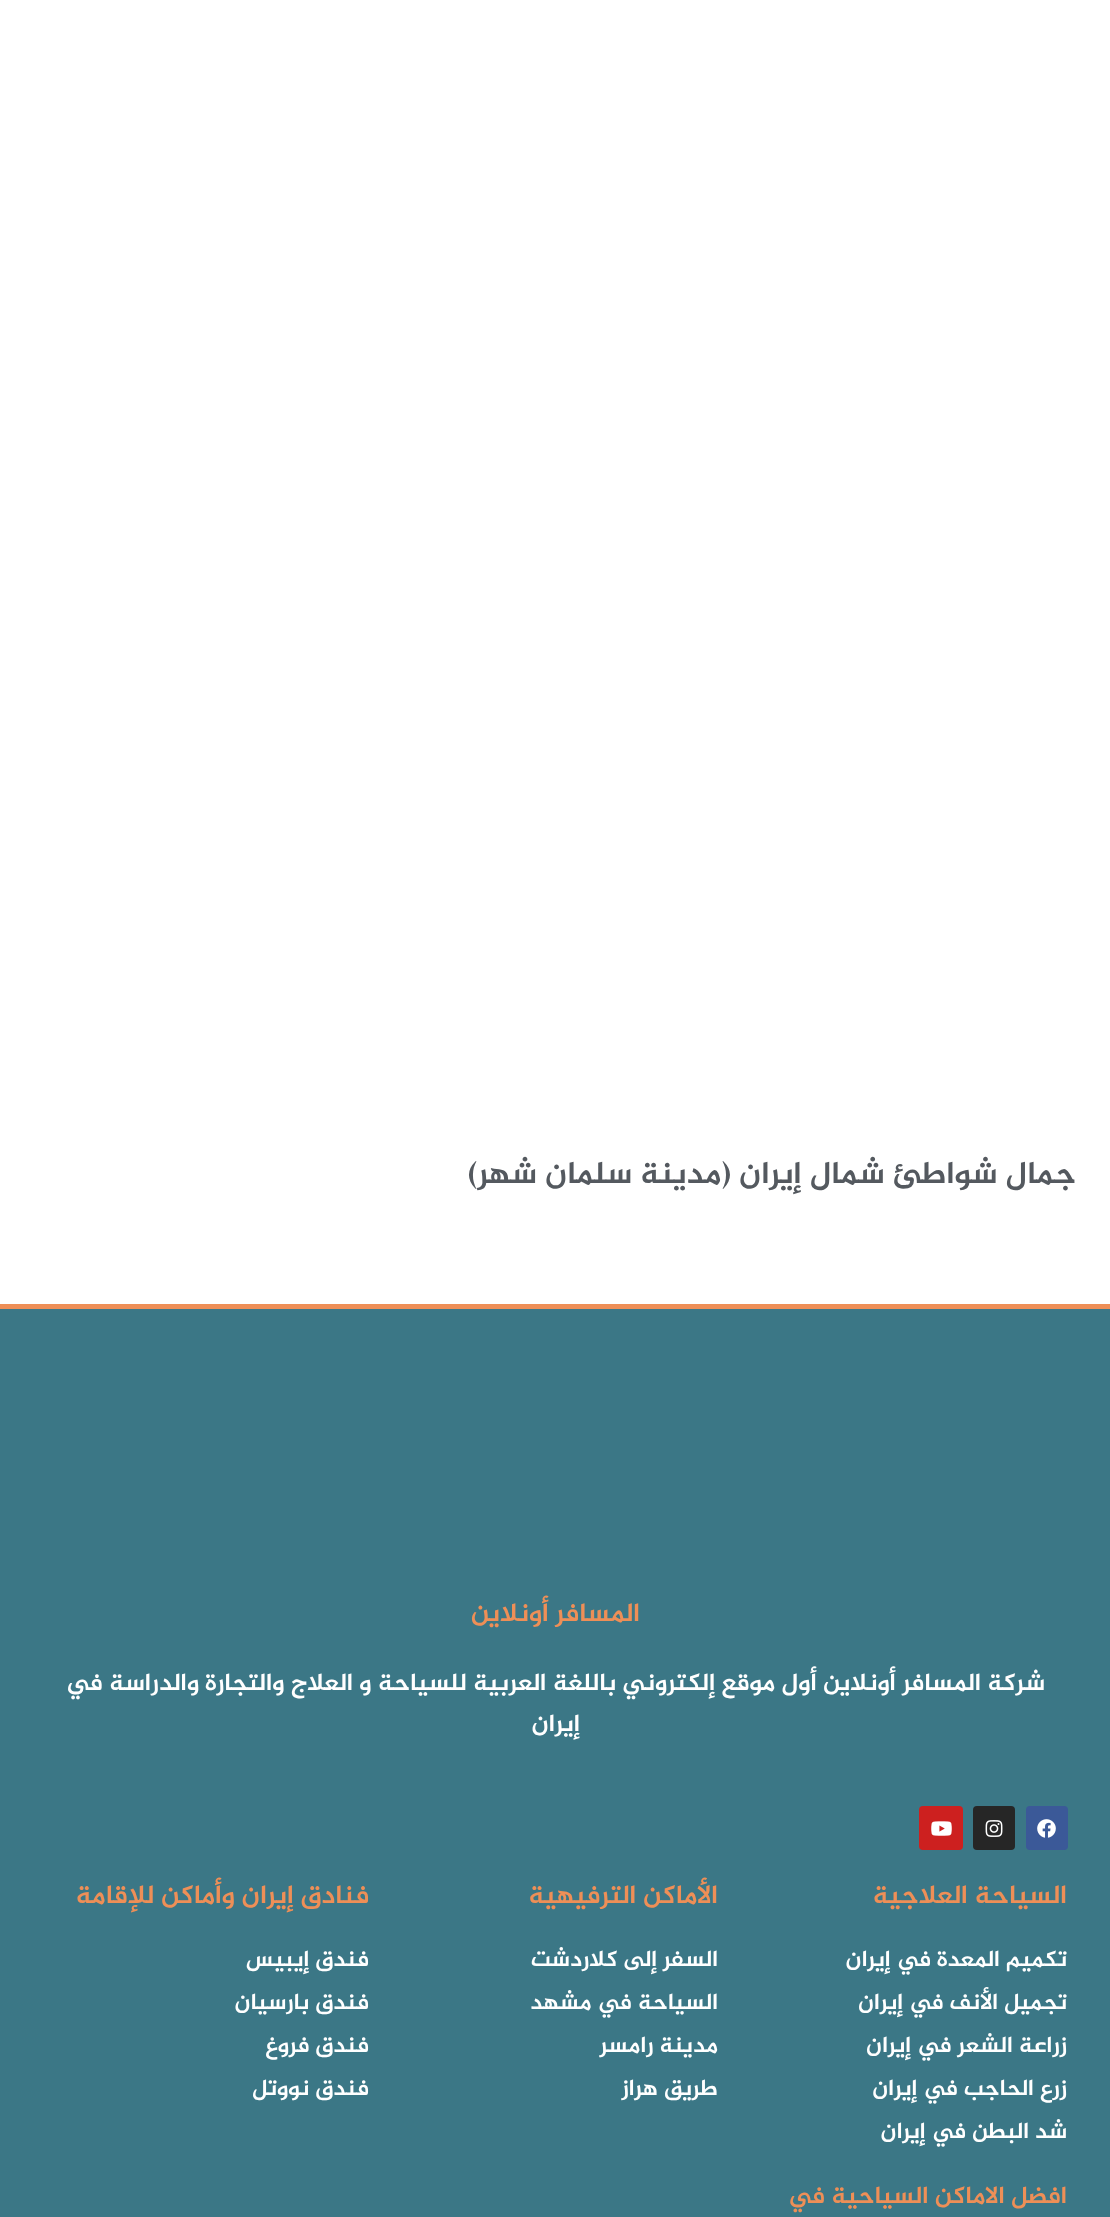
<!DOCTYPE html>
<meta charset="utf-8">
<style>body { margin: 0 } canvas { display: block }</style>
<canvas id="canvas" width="1110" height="2217"></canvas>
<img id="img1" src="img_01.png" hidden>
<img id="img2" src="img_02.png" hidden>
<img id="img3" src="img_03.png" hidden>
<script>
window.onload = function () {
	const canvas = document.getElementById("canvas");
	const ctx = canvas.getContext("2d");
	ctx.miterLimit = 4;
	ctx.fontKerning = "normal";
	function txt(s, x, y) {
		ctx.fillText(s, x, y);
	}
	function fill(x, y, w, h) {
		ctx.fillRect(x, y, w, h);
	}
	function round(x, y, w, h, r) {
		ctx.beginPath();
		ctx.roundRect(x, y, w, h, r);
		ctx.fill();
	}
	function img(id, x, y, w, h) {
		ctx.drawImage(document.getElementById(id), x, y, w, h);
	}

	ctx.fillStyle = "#FFFFFF";
	fill(0, 0, 1110, 2217);
	ctx.fillStyle = "#3B7786";
	fill(0, 1309, 1110, 908);
	ctx.fillStyle = "#EE8F57";
	fill(0, 1304, 1110, 5);
	ctx.fillStyle = "#3B5998";
	round(1026, 1806, 42, 44, 4);
	img("img1", 1037, 1819, 19, 19);
	ctx.fillStyle = "#262626";
	round(973, 1806, 42, 44, 4);
	img("img2", 985, 1820, 18, 17);
	ctx.fillStyle = "#CD201F";
	round(919, 1806, 44, 44, 4);
	img("img3", 931, 1821, 21, 15);
	ctx.direction = "rtl";
	ctx.font = "bold 31.5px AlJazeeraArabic";
	ctx.fillStyle = "#54595F";
	txt("جمال شواطئ شمال إيران (مدينة سلمان شهر)", 1076, 1183);
	ctx.font = "bold 26.25px AlJazeeraArabic";
	ctx.fillStyle = "#EE8F57";
	txt("المسافر أونلاين", 640, 1621);
	ctx.font = "bold 24.5px AlJazeeraArabic";
	ctx.fillStyle = "#FFFFFF";
	txt("شركة المسافر أونلاين أول موقع إلكتروني باللغة العربية للسياحة و العلاج والتجارة والدراسة في", 1045, 1690);
	txt("إيران", 580, 1731);
	ctx.font = "bold 26.25px AlJazeeraArabic";
	ctx.fillStyle = "#EE8F57";
	txt("السياحة العلاجية", 1067, 1903);
	ctx.font = "bold 22.75px AlJazeeraArabic";
	ctx.fillStyle = "#FFFFFF";
	txt("تكميم المعدة في إيران", 1067, 1966);
	txt("تجميل الأنف في إيران", 1067, 2009);
	txt("زراعة الشعر في إيران", 1067, 2052);
	txt("زرع الحاجب في إيران", 1067, 2095);
	txt("شد البطن في إيران", 1067, 2138);
	ctx.font = "bold 26.25px AlJazeeraArabic";
	ctx.fillStyle = "#EE8F57";
	txt("الأماكن الترفيهية", 718, 1903);
	ctx.font = "bold 22.75px AlJazeeraArabic";
	ctx.fillStyle = "#FFFFFF";
	txt("السفر إلى كلاردشت", 718, 1966);
	txt("السياحة في مشهد", 718, 2009);
	txt("مدينة رامسر", 718, 2052);
	txt("طريق هراز", 718, 2095);
	ctx.font = "bold 26.25px AlJazeeraArabic";
	ctx.fillStyle = "#EE8F57";
	txt("فنادق إيران وأماكن للإقامة", 369, 1903);
	ctx.font = "bold 22.75px AlJazeeraArabic";
	ctx.fillStyle = "#FFFFFF";
	txt("فندق إيبيس", 369, 1966);
	txt("فندق بارسيان", 369, 2009);
	txt("فندق فروغ", 369, 2052);
	txt("فندق نووتل", 369, 2095);
	ctx.font = "bold 24.5px AlJazeeraArabic";
	ctx.fillStyle = "#EE8F57";
	txt("افضل الاماكن السياحية في", 1067, 2203);
};
</script>
